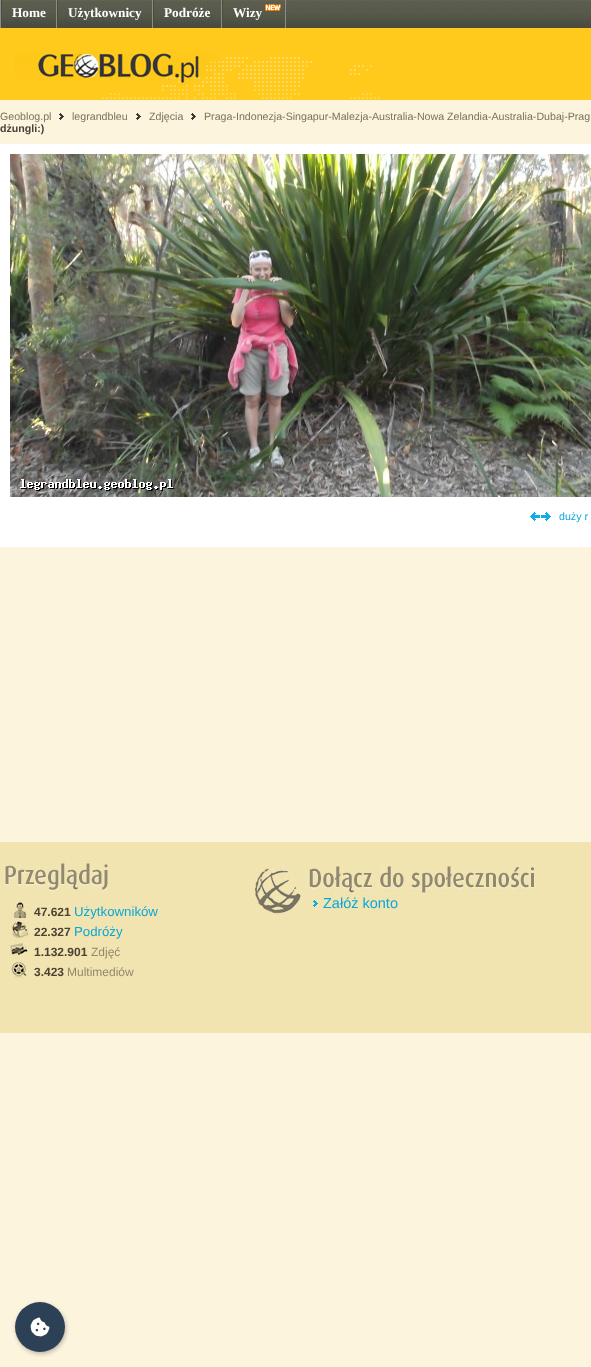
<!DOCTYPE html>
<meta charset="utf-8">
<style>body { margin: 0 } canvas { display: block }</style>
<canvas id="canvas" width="591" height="1367"></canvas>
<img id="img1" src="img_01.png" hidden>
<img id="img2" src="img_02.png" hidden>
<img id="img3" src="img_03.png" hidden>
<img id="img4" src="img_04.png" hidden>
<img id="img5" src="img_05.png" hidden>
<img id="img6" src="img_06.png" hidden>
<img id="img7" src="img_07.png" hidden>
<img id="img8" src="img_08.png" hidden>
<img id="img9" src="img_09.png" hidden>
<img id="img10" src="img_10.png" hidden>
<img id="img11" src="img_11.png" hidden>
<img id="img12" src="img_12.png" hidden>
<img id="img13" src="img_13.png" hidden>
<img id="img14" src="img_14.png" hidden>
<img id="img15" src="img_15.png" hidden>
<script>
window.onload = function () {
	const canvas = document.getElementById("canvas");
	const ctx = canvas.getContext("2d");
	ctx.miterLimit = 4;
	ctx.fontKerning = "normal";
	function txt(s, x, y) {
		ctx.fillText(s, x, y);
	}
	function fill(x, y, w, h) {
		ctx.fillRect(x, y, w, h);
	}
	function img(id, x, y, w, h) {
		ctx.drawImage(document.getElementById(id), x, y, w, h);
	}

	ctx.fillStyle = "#FCF4DD";
	fill(0, 0, 591, 1367);
	img("img1", 2, 0, 589, 28);
	ctx.fillStyle = "#8C8D83";
	fill(0, 0, 1, 28);
	fill(56, 0, 1, 28);
	ctx.fillStyle = "#494A41";
	fill(1, 0, 1, 28);
	ctx.fillStyle = "#8C8D83";
	fill(152, 0, 1, 28);
	ctx.fillStyle = "#494A41";
	fill(57, 0, 1, 28);
	ctx.fillStyle = "#8C8D83";
	fill(221, 0, 1, 28);
	ctx.fillStyle = "#494A41";
	fill(153, 0, 1, 28);
	ctx.fillStyle = "#8C8D83";
	fill(285, 0, 1, 28);
	ctx.fillStyle = "#494A41";
	fill(222, 0, 1, 28);
	img("img2", 265, 4, 16, 7);
	ctx.fillStyle = "#FFCA1C";
	fill(0, 28, 591, 72);
	img("img3", 0, 52, 380, 48);
	img("img4", 59, 113, 5, 7);
	img("img4", 136, 113, 5, 7);
	img("img4", 191, 113, 5, 7);
	ctx.fillStyle = "#FFFFFF";
	fill(0, 144, 591, 403);
	img("img5", 10, 154, 581, 343);
	img("img6", 530, 512, 21, 9);
	ctx.fillStyle = "#F2E4B1";
	fill(0, 842, 591, 191);
	img("img7", 252, 864, 52, 52);
	img("img8", 305, 864, 234, 31);
	img("img9", 310, 898, 9, 12);
	img("img10", 4, 862, 104, 32);
	img("img11", 11, 902, 16, 16);
	img("img12", 11, 921, 18, 17);
	img("img13", 10, 942, 19, 16);
	img("img14", 11, 961, 16, 17);
	ctx.fillStyle = "rgba(0, 0, 0, 0.25)";
	ctx.filter = "blur(2px)";
	ctx.beginPath();
	ctx.roundRect(16, 1304, 50, 50, 25);
	ctx.fill();
	ctx.filter = "none";
	ctx.fillStyle = "#2D4156";
	ctx.beginPath();
	ctx.arc(40, 1327, 25, 0, Math.PI * 2);
	ctx.fill();
	img("img15", 30, 1317, 20, 20);
	ctx.font = "bold 13.25px Liberation Serif";
	ctx.fillStyle = "#FFFFFF";
	txt("Home", 12, 17);
	txt("Użytkownicy", 68, 17);
	txt("Podróże", 164, 17);
	txt("Wizy", 233, 17);
	ctx.font = "10.65px Liberation Sans";
	ctx.fillStyle = "#76765C";
	txt("Geoblog.pl", 0, 120);
	txt("legrandbleu", 72, 120);
	txt("Zdjęcia", 149, 120);
	txt("Praga-Indonezja-Singapur-Malezja-Australia-Nowa Zelandia-Australia-Dubaj-Prag", 204, 120);
	ctx.font = "bold 10.65px Liberation Sans";
	ctx.fillStyle = "#443F39";
	txt("dżungli:)", 0, 132);
	ctx.font = "10.65px Liberation Sans";
	ctx.fillStyle = "#0BA7D8";
	txt("duży r", 559, 520);
	ctx.font = "14.5px Liberation Sans";
	txt("Załóż konto", 323, 908);
	ctx.font = "bold 12px Liberation Sans";
	ctx.fillStyle = "#4B4233";
	txt("47.621", 34, 916);
	ctx.font = "13.25px Liberation Sans";
	ctx.fillStyle = "#0BA7D8";
	txt("Użytkowników", 74, 916);
	ctx.font = "bold 12px Liberation Sans";
	ctx.fillStyle = "#4B4233";
	txt("22.327", 34, 936);
	ctx.font = "13.25px Liberation Sans";
	ctx.fillStyle = "#0BA7D8";
	txt("Podróży", 74, 936);
	ctx.font = "bold 12px Liberation Sans";
	ctx.fillStyle = "#4B4233";
	txt("1.132.901", 34, 956);
	ctx.font = "12px Liberation Sans";
	ctx.fillStyle = "#92886A";
	txt("Zdjęć", 91, 956);
	ctx.font = "bold 12px Liberation Sans";
	ctx.fillStyle = "#4B4233";
	txt("3.423", 34, 976);
	ctx.font = "12px Liberation Sans";
	ctx.fillStyle = "#92886A";
	txt("Multimediów", 67, 976);
};
</script>
